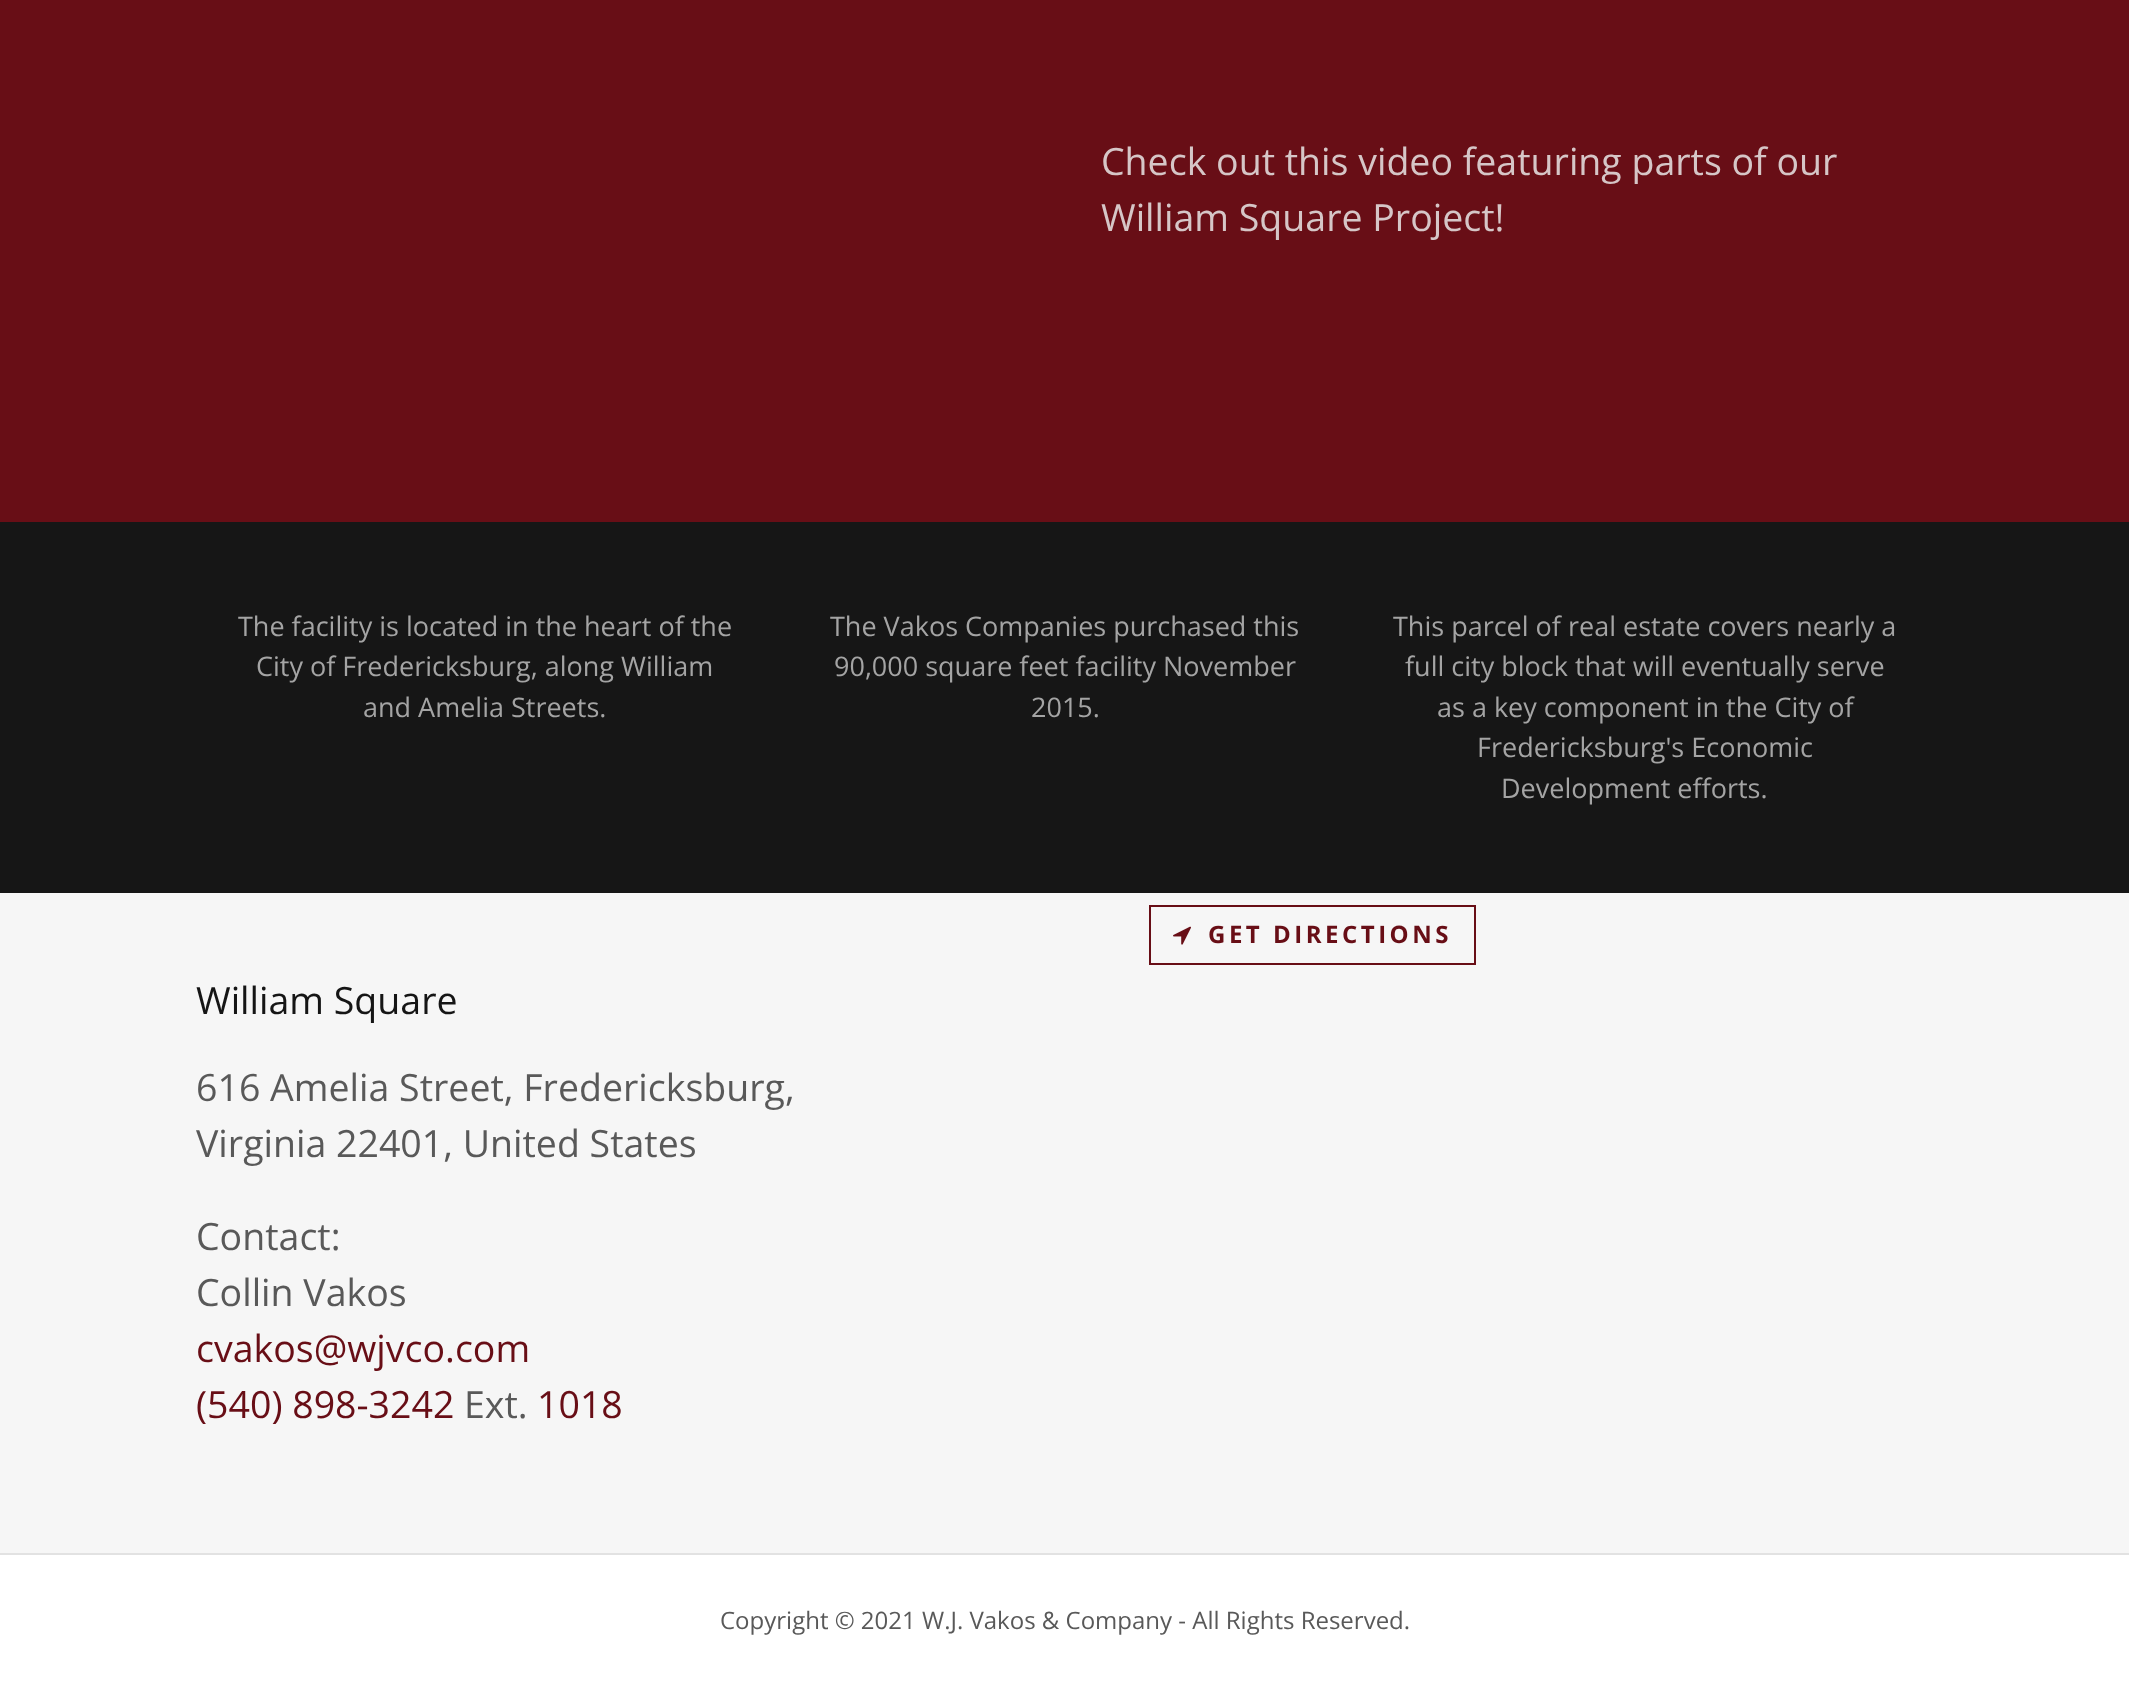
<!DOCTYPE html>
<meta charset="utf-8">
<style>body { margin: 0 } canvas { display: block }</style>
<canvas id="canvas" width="2129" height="1686"></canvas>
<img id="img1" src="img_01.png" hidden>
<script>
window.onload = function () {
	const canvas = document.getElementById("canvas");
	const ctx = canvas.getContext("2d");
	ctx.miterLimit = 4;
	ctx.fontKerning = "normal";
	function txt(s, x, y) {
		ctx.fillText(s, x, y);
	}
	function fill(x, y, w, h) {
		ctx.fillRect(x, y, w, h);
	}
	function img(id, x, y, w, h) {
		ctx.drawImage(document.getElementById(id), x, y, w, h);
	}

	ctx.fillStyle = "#FFFFFF";
	fill(0, 0, 2129, 1686);
	ctx.fillStyle = "#680E16";
	fill(0, 0, 2129, 522);
	ctx.fillStyle = "#161616";
	fill(0, 522, 2129, 371);
	ctx.fillStyle = "#F6F6F6";
	fill(0, 893, 2129, 660);
	ctx.strokeStyle = "#680E16";
	ctx.lineWidth = 2;
	ctx.strokeRect(1150, 906, 325, 58);
	img("img1", 1173, 926, 18, 19);
	ctx.fillStyle = "#E2E2E2";
	fill(0, 1553, 2129, 2);
	ctx.font = "37.5px Open Sans";
	ctx.fillStyle = "#D6C6C7";
	txt("Check out this video featuring parts of our", 1101, 175);
	txt("William Square Project!", 1101, 231);
	ctx.font = "27px Open Sans";
	ctx.fillStyle = "#A4A4A4";
	txt("The facility is located in the heart of the", 238, 636);
	txt("City of Fredericksburg, along William", 256, 676);
	txt("and Amelia Streets.", 363, 717);
	txt("The Vakos Companies purchased this", 830, 636);
	txt("90,000 square feet facility November", 834, 676);
	txt("2015.", 1031, 717);
	txt("This parcel of real estate covers nearly a", 1393, 636);
	txt("full city block that will eventually serve", 1405, 676);
	txt("as a key component in the City of", 1437, 717);
	txt("Fredericksburg's Economic", 1477, 757);
	txt("Development efforts.", 1501, 798);
	ctx.letterSpacing = "3.5px";
	ctx.font = "bold 24px Open Sans";
	ctx.fillStyle = "#680E16";
	txt("GET DIRECTIONS", 1208, 943);
	ctx.letterSpacing = "0px";
	ctx.font = "37.5px Open Sans";
	ctx.fillStyle = "#151515";
	txt("William Square", 196, 1014);
	ctx.fillStyle = "#595959";
	txt("616 Amelia Street, Fredericksburg,", 196, 1101);
	txt("Virginia 22401, United States", 196, 1157);
	txt("Contact:", 196, 1250);
	txt("Collin Vakos", 196, 1306);
	ctx.fillStyle = "#680E16";
	txt("cvakos@wjvco.com", 196, 1362);
	txt("(540) 898-3242", 196, 1418);
	ctx.fillStyle = "#595959";
	txt("Ext.", 464, 1418);
	ctx.fillStyle = "#680E16";
	txt("1018", 537, 1418);
	ctx.font = "24px Open Sans";
	ctx.fillStyle = "#595959";
	txt("Copyright © 2021 W.J. Vakos & Company - All Rights Reserved.", 720, 1629);
};
</script>
